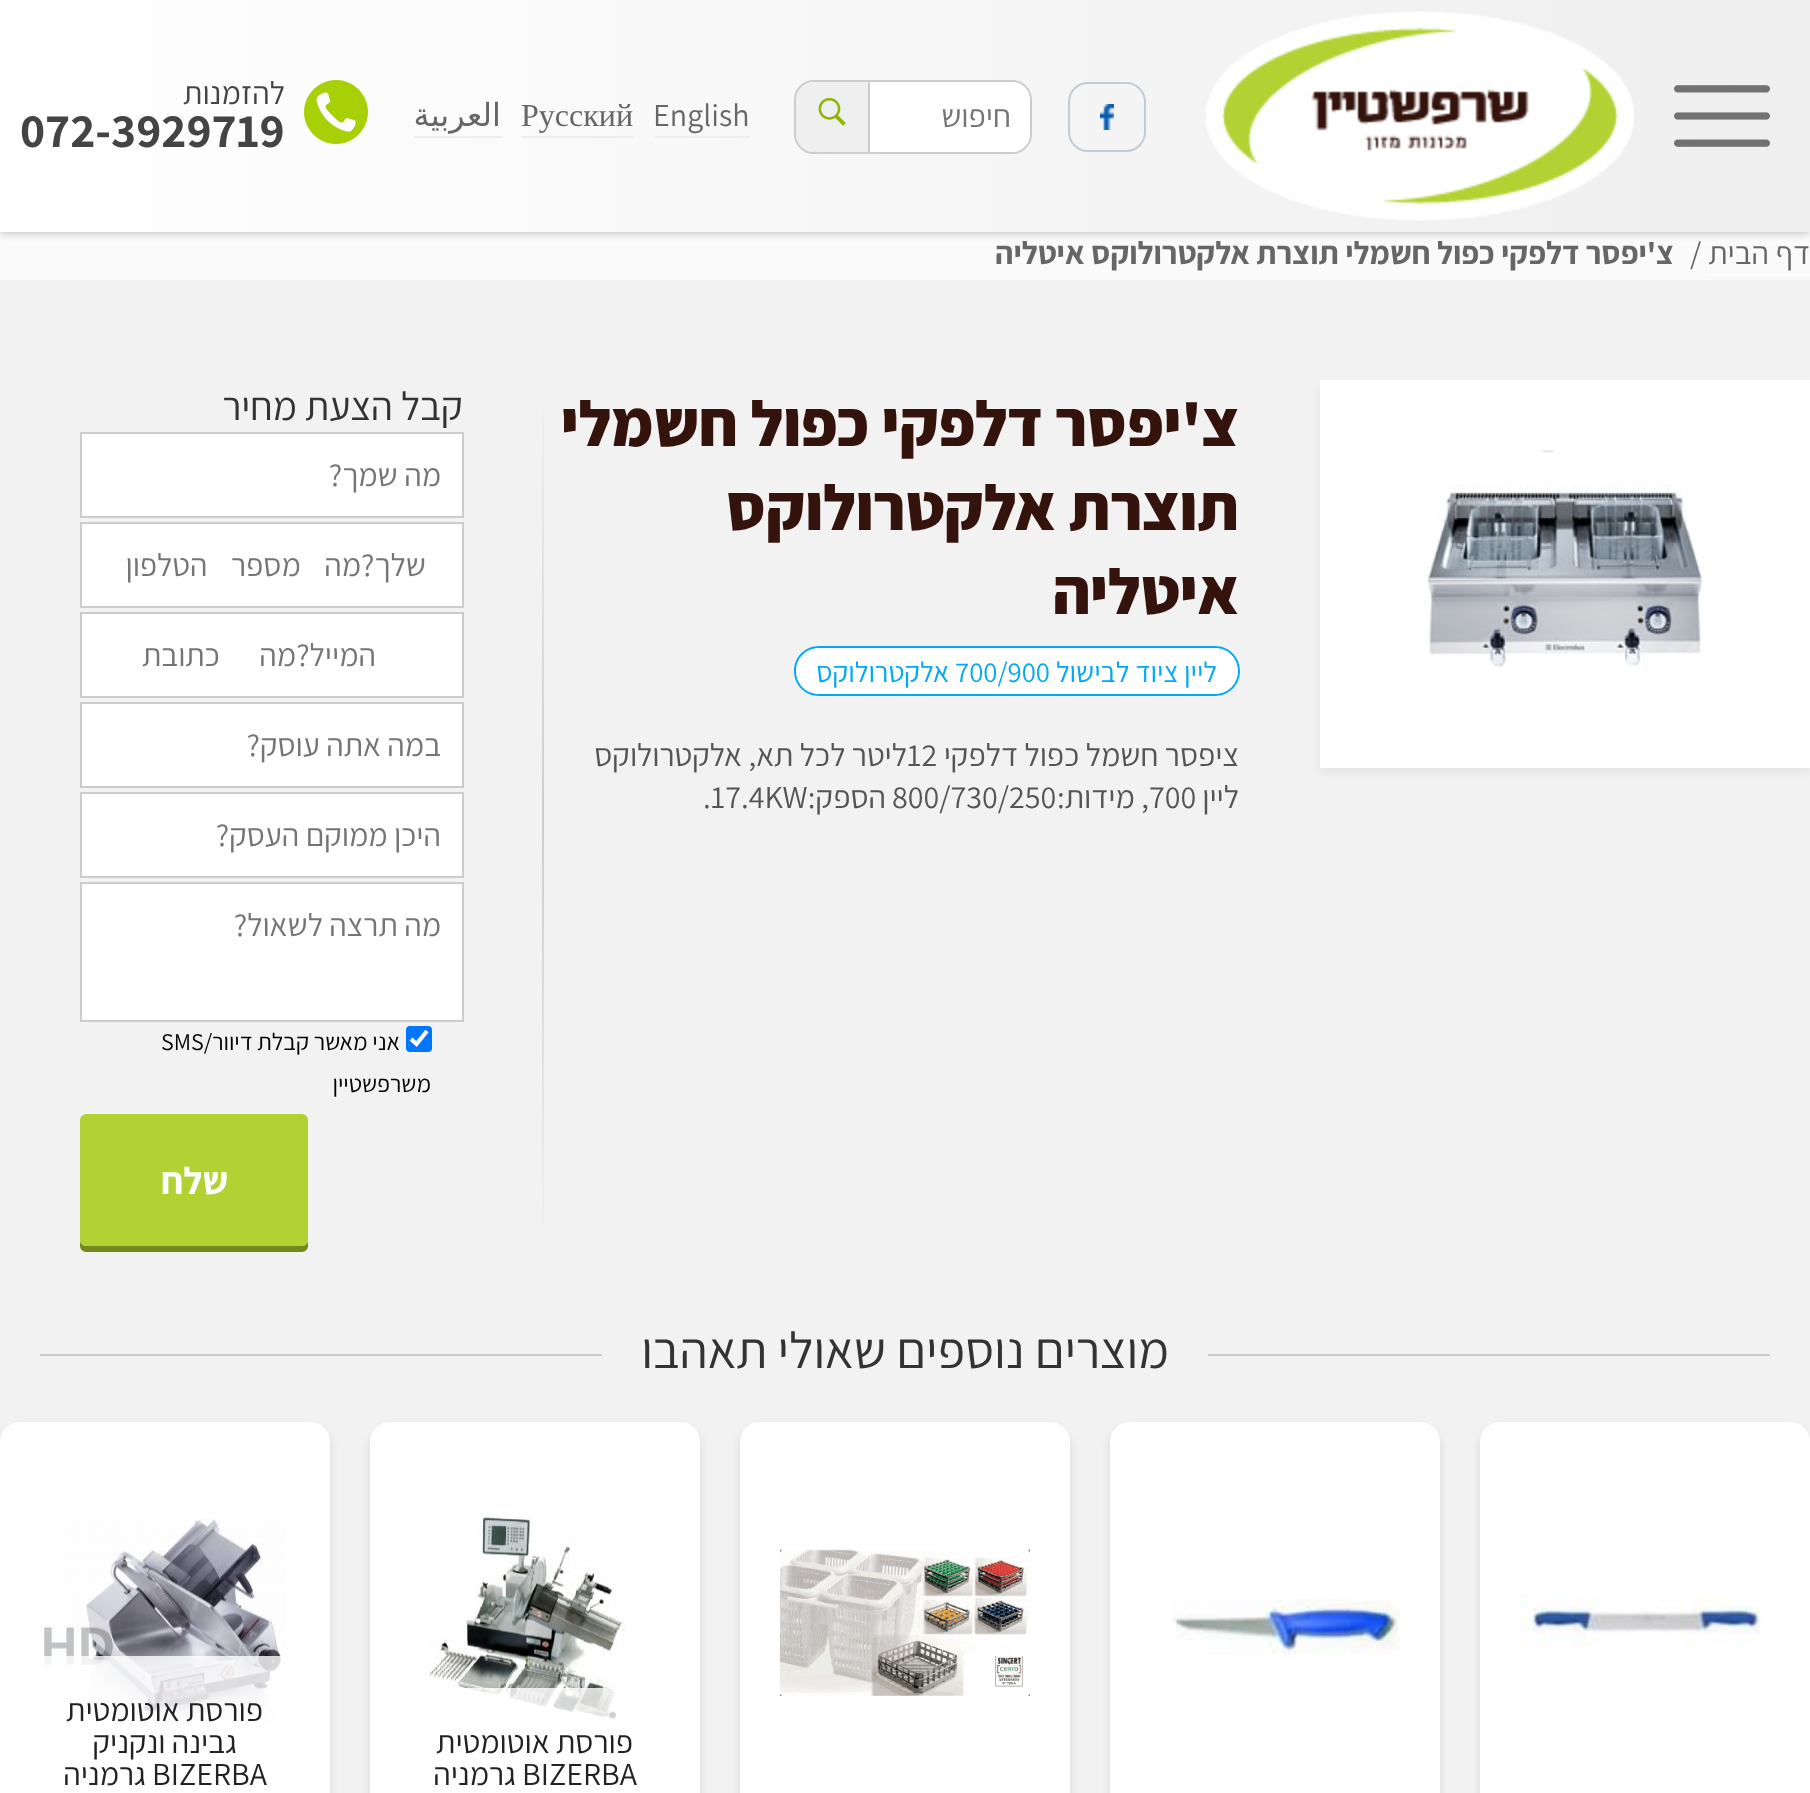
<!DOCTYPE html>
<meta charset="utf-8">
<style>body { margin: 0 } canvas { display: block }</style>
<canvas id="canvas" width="1810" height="1793"></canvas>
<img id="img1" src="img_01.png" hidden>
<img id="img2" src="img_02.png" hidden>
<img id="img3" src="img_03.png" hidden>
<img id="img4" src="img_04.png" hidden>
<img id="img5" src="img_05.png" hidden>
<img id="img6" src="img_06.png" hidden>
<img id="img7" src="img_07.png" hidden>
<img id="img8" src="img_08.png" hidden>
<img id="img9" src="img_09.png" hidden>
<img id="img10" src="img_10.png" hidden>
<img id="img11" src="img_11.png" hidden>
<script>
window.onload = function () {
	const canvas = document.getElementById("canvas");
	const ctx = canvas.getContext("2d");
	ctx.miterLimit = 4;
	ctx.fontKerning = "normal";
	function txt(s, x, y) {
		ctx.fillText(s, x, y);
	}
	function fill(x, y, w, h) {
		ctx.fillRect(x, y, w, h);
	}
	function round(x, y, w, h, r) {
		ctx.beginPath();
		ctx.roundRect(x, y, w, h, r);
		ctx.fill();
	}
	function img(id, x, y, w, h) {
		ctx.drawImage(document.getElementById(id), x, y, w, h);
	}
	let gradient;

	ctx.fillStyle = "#FAFAFA";
	fill(0, 0, 1810, 1793);
	ctx.fillStyle = "rgba(0, 0, 0, 0.3)";
	ctx.filter = "blur(5px)";
	ctx.beginPath();
	ctx.rect(0, 0, 1810, 232);
	ctx.fill();
	ctx.filter = "none";
	gradient = ctx.createLinearGradient(0, 116, 1810, 116);
	gradient.addColorStop(0, "#FFFFFF");
	gradient.addColorStop(1, "#EEEEEE");
	ctx.fillStyle = gradient;
	fill(0, 0, 1810, 232);
	img("img1", 1674, 85, 96, 62);
	img("img2", 1206, 11, 428, 210);
	ctx.beginPath();
	ctx.roundRect(1069, 83, 76, 68, 19);
	ctx.strokeStyle = "#C2CCD6";
	ctx.lineWidth = 2;
	ctx.stroke();
	img("img3", 1100, 104, 14, 26);
	ctx.beginPath();
	ctx.roundRect(795, 81, 236, 72, 19);
	ctx.strokeStyle = "#CCCCCC";
	ctx.stroke();
	ctx.fillStyle = "#FFFFFF";
	ctx.beginPath();
	ctx.roundRect(870, 82, 160, 70, [0, 18, 18, 0]);
	ctx.fill();
	ctx.fillStyle = "#EFEFEF";
	ctx.beginPath();
	ctx.roundRect(796, 82, 74, 70, [18, 0, 0, 18]);
	ctx.fill();
	ctx.fillStyle = "#CCCCCC";
	fill(868, 82, 2, 70);
	img("img4", 818, 97, 28, 29);
	ctx.fillStyle = "#EEEEEE";
	fill(654, 136, 96, 2);
	fill(522, 136, 112, 2);
	fill(414, 136, 88, 2);
	img("img5", 304, 80, 64, 64);
	ctx.fillStyle = "#FDFDFD";
	fill(1708, 274, 102, 2);
	ctx.fillStyle = "#F2F2F2";
	fill(0, 280, 1810, 1513);
	ctx.fillStyle = "rgba(0, 0, 0, 0.05)";
	ctx.filter = "blur(5px)";
	ctx.beginPath();
	ctx.rect(1320, 386, 490, 388);
	ctx.fill();
	ctx.filter = "none";
	ctx.strokeStyle = "#FFFFFF";
	ctx.lineWidth = 10;
	ctx.strokeRect(1325, 385, 480, 378);
	img("img6", 1330, 390, 470, 368);
	ctx.fillStyle = "#FFFFFF";
	ctx.beginPath();
	ctx.roundRect(794, 646, 162, 50, [25, 0, 0, 25]);
	ctx.fill();
	ctx.fillStyle = "#03A9F4";
	ctx.beginPath();
	ctx.moveTo(819, 646);
	ctx.lineTo(956, 646);
	ctx.lineTo(956, 696);
	ctx.lineTo(819, 696);
	ctx.bezierCurveTo(805, 696, 794, 685, 794, 671);
	ctx.bezierCurveTo(794, 657, 805, 646, 819, 646);
	ctx.closePath();
	ctx.moveTo(819, 648);
	ctx.lineTo(956, 648);
	ctx.lineTo(956, 694);
	ctx.lineTo(819, 694);
	ctx.bezierCurveTo(806, 694, 796, 684, 796, 671);
	ctx.bezierCurveTo(796, 658, 806, 648, 819, 648);
	ctx.closePath();
	ctx.fill("evenodd");
	ctx.fillStyle = "#FFFFFF";
	fill(956, 648, 94, 46);
	ctx.fillStyle = "#03A9F4";
	fill(956, 646, 94, 2);
	fill(956, 694, 94, 2);
	ctx.fillStyle = "#FFFFFF";
	ctx.beginPath();
	ctx.roundRect(1050, 646, 190, 50, [0, 25, 25, 0]);
	ctx.fill();
	ctx.fillStyle = "#03A9F4";
	ctx.beginPath();
	ctx.moveTo(1050, 646);
	ctx.lineTo(1215, 646);
	ctx.bezierCurveTo(1229, 646, 1240, 657, 1240, 671);
	ctx.bezierCurveTo(1240, 685, 1229, 696, 1215, 696);
	ctx.lineTo(1050, 696);
	ctx.closePath();
	ctx.moveTo(1050, 648);
	ctx.lineTo(1215, 648);
	ctx.bezierCurveTo(1228, 648, 1238, 658, 1238, 671);
	ctx.bezierCurveTo(1238, 684, 1228, 694, 1215, 694);
	ctx.lineTo(1050, 694);
	ctx.closePath();
	ctx.fill("evenodd");
	gradient = ctx.createLinearGradient(543, 380, 543, 1256);
	gradient.addColorStop(0, "#F2F2F2");
	gradient.addColorStop(0.5, "#CCCCCC");
	gradient.addColorStop(1, "#F2F2F2");
	ctx.fillStyle = gradient;
	fill(542, 409, 2, 818);
	ctx.fillStyle = "#FFFFFF";
	ctx.beginPath();
	ctx.rect(81, 433, 382, 84);
	ctx.fill();
	ctx.strokeStyle = "#CCCCCC";
	ctx.lineWidth = 2;
	ctx.stroke();
	ctx.beginPath();
	ctx.rect(81, 523, 382, 84);
	ctx.fill();
	ctx.stroke();
	ctx.beginPath();
	ctx.rect(81, 613, 382, 84);
	ctx.fill();
	ctx.stroke();
	ctx.beginPath();
	ctx.rect(81, 703, 382, 84);
	ctx.fill();
	ctx.stroke();
	ctx.beginPath();
	ctx.rect(81, 793, 382, 84);
	ctx.fill();
	ctx.stroke();
	ctx.beginPath();
	ctx.rect(81, 883, 382, 138);
	ctx.fill();
	ctx.stroke();
	ctx.fillStyle = "#0075FF";
	round(406, 1026, 26, 26, 4);
	ctx.beginPath();
	ctx.moveTo(411, 1039);
	ctx.lineTo(416.5, 1044);
	ctx.lineTo(427, 1031);
	ctx.strokeStyle = "#FFFFFF";
	ctx.lineWidth = 4.2;
	ctx.stroke();
	ctx.fillStyle = "#758A1E";
	ctx.beginPath();
	ctx.moveTo(80, 1240);
	ctx.lineTo(80, 1246);
	ctx.bezierCurveTo(80, 1249, 83, 1252, 86, 1252);
	ctx.lineTo(302, 1252);
	ctx.bezierCurveTo(305, 1252, 308, 1249, 308, 1246);
	ctx.lineTo(308, 1240);
	ctx.bezierCurveTo(308, 1243, 305, 1246, 302, 1246);
	ctx.lineTo(86, 1246);
	ctx.bezierCurveTo(83, 1246, 80, 1243, 80, 1240);
	ctx.closePath();
	ctx.fill();
	ctx.fillStyle = "#B2D234";
	round(80, 1114, 228, 132, 6);
	ctx.fillStyle = "#CCCCCC";
	fill(1208, 1354, 562, 2);
	fill(40, 1354, 562, 2);
	ctx.fillStyle = "rgba(0, 0, 0, 0.1)";
	ctx.filter = "blur(5px)";
	ctx.beginPath();
	ctx.roundRect(1480, 1428, 330, 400, 20);
	ctx.fill();
	ctx.filter = "none";
	ctx.fillStyle = "#FFFFFF";
	round(1480, 1422, 330, 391, 20);
	img("img7", 1520, 1593, 241, 54);
	ctx.fillStyle = "rgba(0, 0, 0, 0.1)";
	ctx.filter = "blur(5px)";
	ctx.beginPath();
	ctx.roundRect(1110, 1428, 330, 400, 20);
	ctx.fill();
	ctx.filter = "none";
	ctx.fillStyle = "#FFFFFF";
	round(1110, 1422, 330, 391, 20);
	img("img8", 1171, 1599, 229, 56);
	ctx.fillStyle = "rgba(0, 0, 0, 0.1)";
	ctx.filter = "blur(5px)";
	ctx.beginPath();
	ctx.roundRect(740, 1428, 330, 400, 20);
	ctx.fill();
	ctx.filter = "none";
	ctx.fillStyle = "#FFFFFF";
	round(740, 1422, 330, 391, 20);
	img("img9", 780, 1549, 250, 147);
	ctx.fillStyle = "rgba(0, 0, 0, 0.1)";
	ctx.filter = "blur(5px)";
	ctx.beginPath();
	ctx.roundRect(370, 1428, 330, 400, 20);
	ctx.fill();
	ctx.filter = "none";
	ctx.fillStyle = "#FFFFFF";
	round(370, 1422, 330, 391, 20);
	img("img10", 426, 1514, 200, 207);
	ctx.fillStyle = "rgba(255, 255, 255, 0.8)";
	round(370, 1688, 330, 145, 40);
	ctx.fillStyle = "rgba(0, 0, 0, 0.1)";
	ctx.filter = "blur(5px)";
	ctx.beginPath();
	ctx.roundRect(0, 1428, 330, 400, 20);
	ctx.fill();
	ctx.filter = "none";
	ctx.fillStyle = "#FFFFFF";
	round(0, 1422, 330, 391, 20);
	img("img11", 41, 1518, 246, 209);
	ctx.fillStyle = "rgba(255, 255, 255, 0.8)";
	round(0, 1656, 330, 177, 40);
	ctx.direction = "rtl";
	ctx.font = "32px Assistant";
	ctx.fillStyle = "#757575";
	txt("חיפוש", 1011, 127);
	ctx.direction = "ltr";
	ctx.fillStyle = "#666666";
	txt("English", 653, 126);
	ctx.font = "32px Liberation Serif";
	txt("Русский", 521, 126);
	ctx.direction = "rtl";
	ctx.font = "32px DejaVu Sans";
	txt("العربية", 501, 126);
	ctx.font = "32px Assistant";
	ctx.fillStyle = "#444444";
	txt("להזמנות", 285, 104);
	ctx.direction = "ltr";
	ctx.font = "bold 48px Assistant";
	txt("072-3929719", 20, 147);
	ctx.direction = "rtl";
	ctx.font = "32px Assistant";
	ctx.fillStyle = "#666666";
	txt("דף הבית", 1810, 264);
	ctx.direction = "ltr";
	txt("/", 1690, 264);
	ctx.direction = "rtl";
	ctx.font = "bold 32px Assistant";
	txt("צ'יפסר דלפקי כפול חשמלי תוצרת אלקטרולוקס איטליה", 1674, 264);
	ctx.font = "800 64px Assistant";
	ctx.fillStyle = "#35130D";
	txt("צ'יפסר דלפקי כפול חשמלי", 1239, 446);
	txt("תוצרת אלקטרולוקס", 1239, 530);
	txt("איטליה", 1239, 614);
	ctx.font = "28.75px Assistant";
	ctx.fillStyle = "#03A9F4";
	txt("ליין ציוד לבישול", 1217, 682);
	ctx.direction = "ltr";
	txt("700/900", 955, 682);
	ctx.direction = "rtl";
	txt("אלקטרולוקס", 949, 682);
	ctx.font = "32px Assistant";
	ctx.fillStyle = "#555555";
	txt("ציפסר חשמל כפול דלפקי", 1239, 766);
	ctx.direction = "ltr";
	txt("12", 907, 766);
	ctx.direction = "rtl";
	txt("ליטר לכל תא, אלקטרולוקס", 907, 766);
	txt("ליין", 1239, 808);
	ctx.direction = "ltr";
	txt("700", 1149, 808);
	ctx.direction = "rtl";
	txt(", מידות:", 1149, 808);
	ctx.direction = "ltr";
	txt("800/730/250", 892, 808);
	ctx.direction = "rtl";
	txt("הספק:", 886, 808);
	ctx.direction = "ltr";
	txt(".17.4KW", 703, 808);
	ctx.direction = "rtl";
	ctx.font = "40px Assistant";
	ctx.fillStyle = "#333333";
	txt("קבל הצעת מחיר", 463, 420);
	ctx.font = "32px Assistant";
	ctx.fillStyle = "#757575";
	txt("מה שמך?", 441, 486);
	txt("שלך?", 426, 576);
	ctx.wordSpacing = "17px";
	txt("מה מספר הטלפון", 361, 576);
	ctx.wordSpacing = "0px";
	txt("המייל?", 376, 666);
	ctx.wordSpacing = "33px";
	txt("מה כתובת", 296, 666);
	ctx.wordSpacing = "0px";
	txt("במה אתה עוסק?", 441, 756);
	txt("היכן ממוקם העסק?", 441, 846);
	txt("מה תרצה לשאול?", 441, 936);
	ctx.font = "24px Assistant";
	ctx.fillStyle = "#000000";
	txt("אני מאשר קבלת דיוור/", 400, 1050);
	ctx.direction = "ltr";
	txt("SMS", 161, 1050);
	ctx.direction = "rtl";
	txt("משרפשטיין", 431, 1092);
	ctx.font = "bold 38px Assistant";
	ctx.fillStyle = "#FFFFFF";
	txt("שלח", 228, 1194);
	ctx.font = "51.25px Assistant";
	ctx.fillStyle = "#333333";
	txt("מוצרים נוספים שאולי תאהבו", 1169, 1368);
	ctx.font = "32px Assistant";
	ctx.fillStyle = "#222222";
	txt("פורסת אוטומטית", 633, 1753);
	ctx.direction = "ltr";
	txt("BIZERBA", 522, 1785);
	ctx.direction = "rtl";
	txt("גרמניה", 516, 1785);
	txt("פורסת אוטומטית", 263, 1721);
	txt("גבינה ונקניק", 237, 1753);
	ctx.direction = "ltr";
	txt("BIZERBA", 152, 1785);
	ctx.direction = "rtl";
	txt("גרמניה", 146, 1785);
};
</script>
